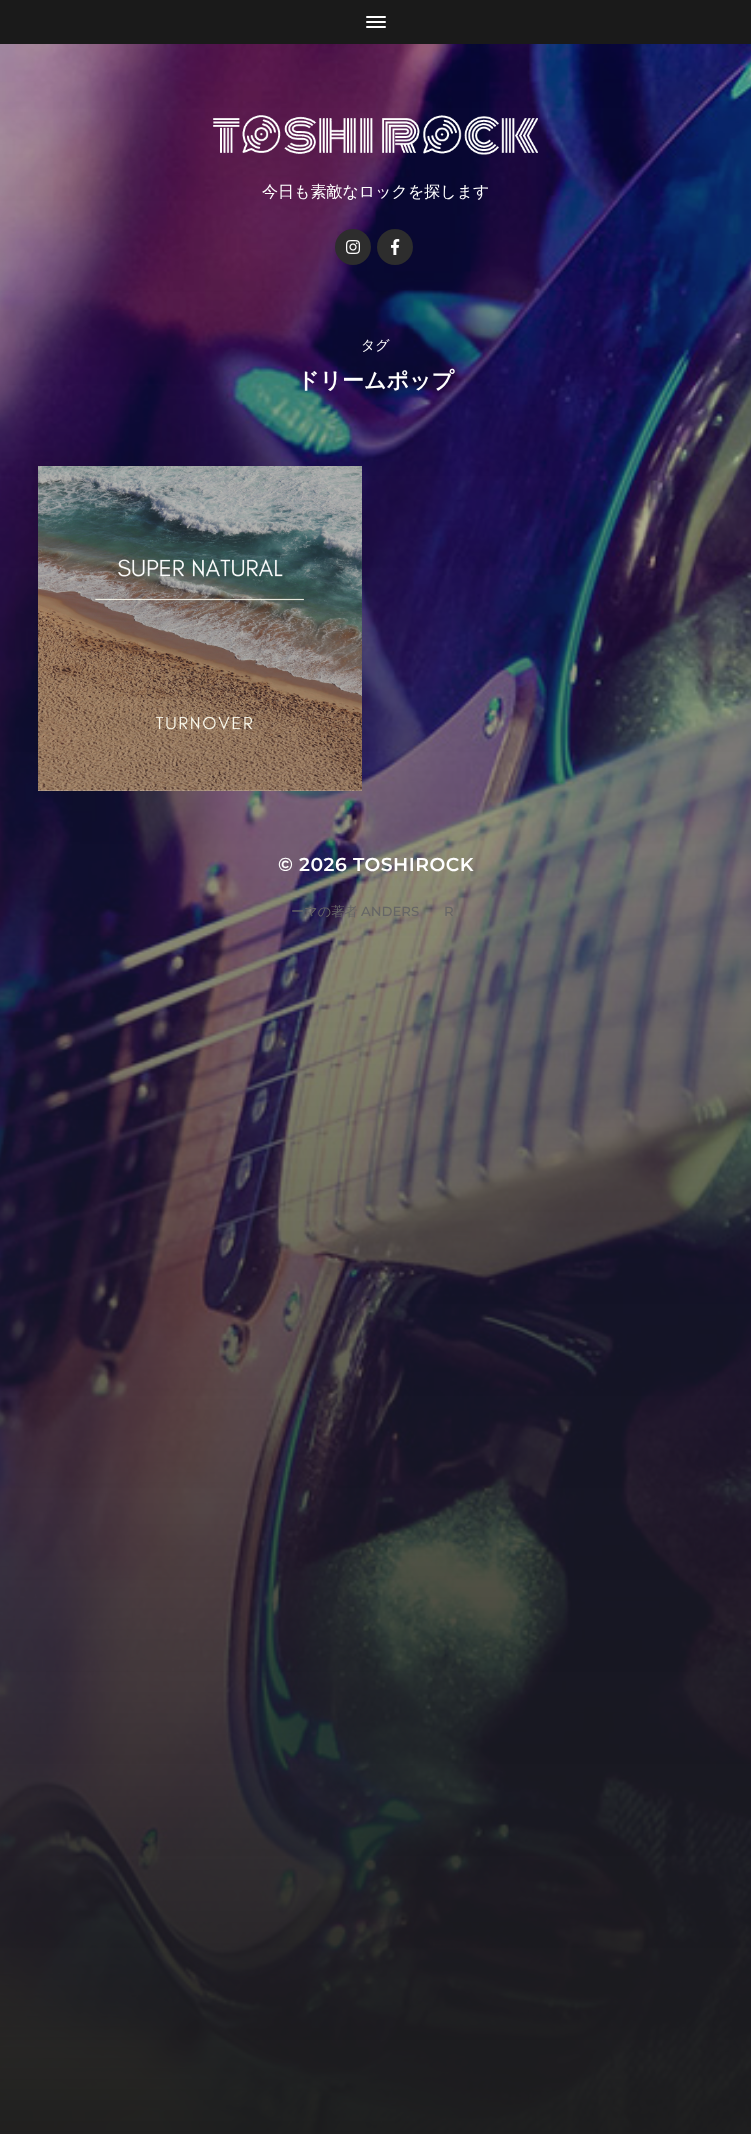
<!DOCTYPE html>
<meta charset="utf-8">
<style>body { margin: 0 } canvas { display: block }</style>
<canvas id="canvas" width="751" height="2134"></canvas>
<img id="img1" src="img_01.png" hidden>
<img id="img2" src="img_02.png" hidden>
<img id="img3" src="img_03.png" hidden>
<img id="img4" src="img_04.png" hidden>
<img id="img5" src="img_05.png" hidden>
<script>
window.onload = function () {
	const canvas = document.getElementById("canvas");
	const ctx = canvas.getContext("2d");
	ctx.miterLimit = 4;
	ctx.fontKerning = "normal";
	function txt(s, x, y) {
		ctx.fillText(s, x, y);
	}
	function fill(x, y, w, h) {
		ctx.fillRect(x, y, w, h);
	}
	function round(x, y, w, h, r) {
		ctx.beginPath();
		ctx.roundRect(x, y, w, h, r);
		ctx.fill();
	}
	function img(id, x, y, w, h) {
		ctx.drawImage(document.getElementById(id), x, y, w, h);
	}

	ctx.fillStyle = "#1A1A1A";
	fill(0, 0, 751, 2134);
	ctx.fillStyle = "#FFFFFF";
	round(366, 16, 20, 2, 1);
	round(366, 21, 20, 2, 1);
	round(366, 26, 20, 2, 1);
	img("img1", 0, 44, 751, 2090);
	img("img2", 213, 115, 325, 40);
	ctx.fillStyle = "#2D2D2D";
	ctx.beginPath();
	ctx.arc(353, 247, 18, 0, Math.PI * 2);
	ctx.fill();
	img("img3", 346, 240, 14, 14);
	ctx.beginPath();
	ctx.arc(395, 247, 18, 0, Math.PI * 2);
	ctx.fill();
	img("img4", 391, 239, 9, 16);
	img("img5", 38, 466, 324, 325);
	ctx.font = "500 16px WenQuanYi Zen Hei";
	ctx.fillStyle = "#FFFFFF";
	txt("今日も素敵なロックを探します", 262, 197);
	ctx.font = "500 14px WenQuanYi Zen Hei";
	txt("タグ", 361, 350);
	ctx.font = "bold 22px WenQuanYi Zen Hei";
	txt("ドリームポップ", 297, 388);
	ctx.letterSpacing = "0.5px";
	ctx.font = "600 18.75px Montserrat";
	txt("© 2026 TOSHIROCK", 278, 871);
	ctx.letterSpacing = "0px";
	ctx.font = "500 13.25px WenQuanYi Zen Hei";
	ctx.fillStyle = "#666666";
	txt("ーマの著者", 291, 916);
	ctx.font = "500 13.25px Montserrat";
	txt("ANDERS", 361, 916);
	txt("R", 444, 916);
};
</script>
